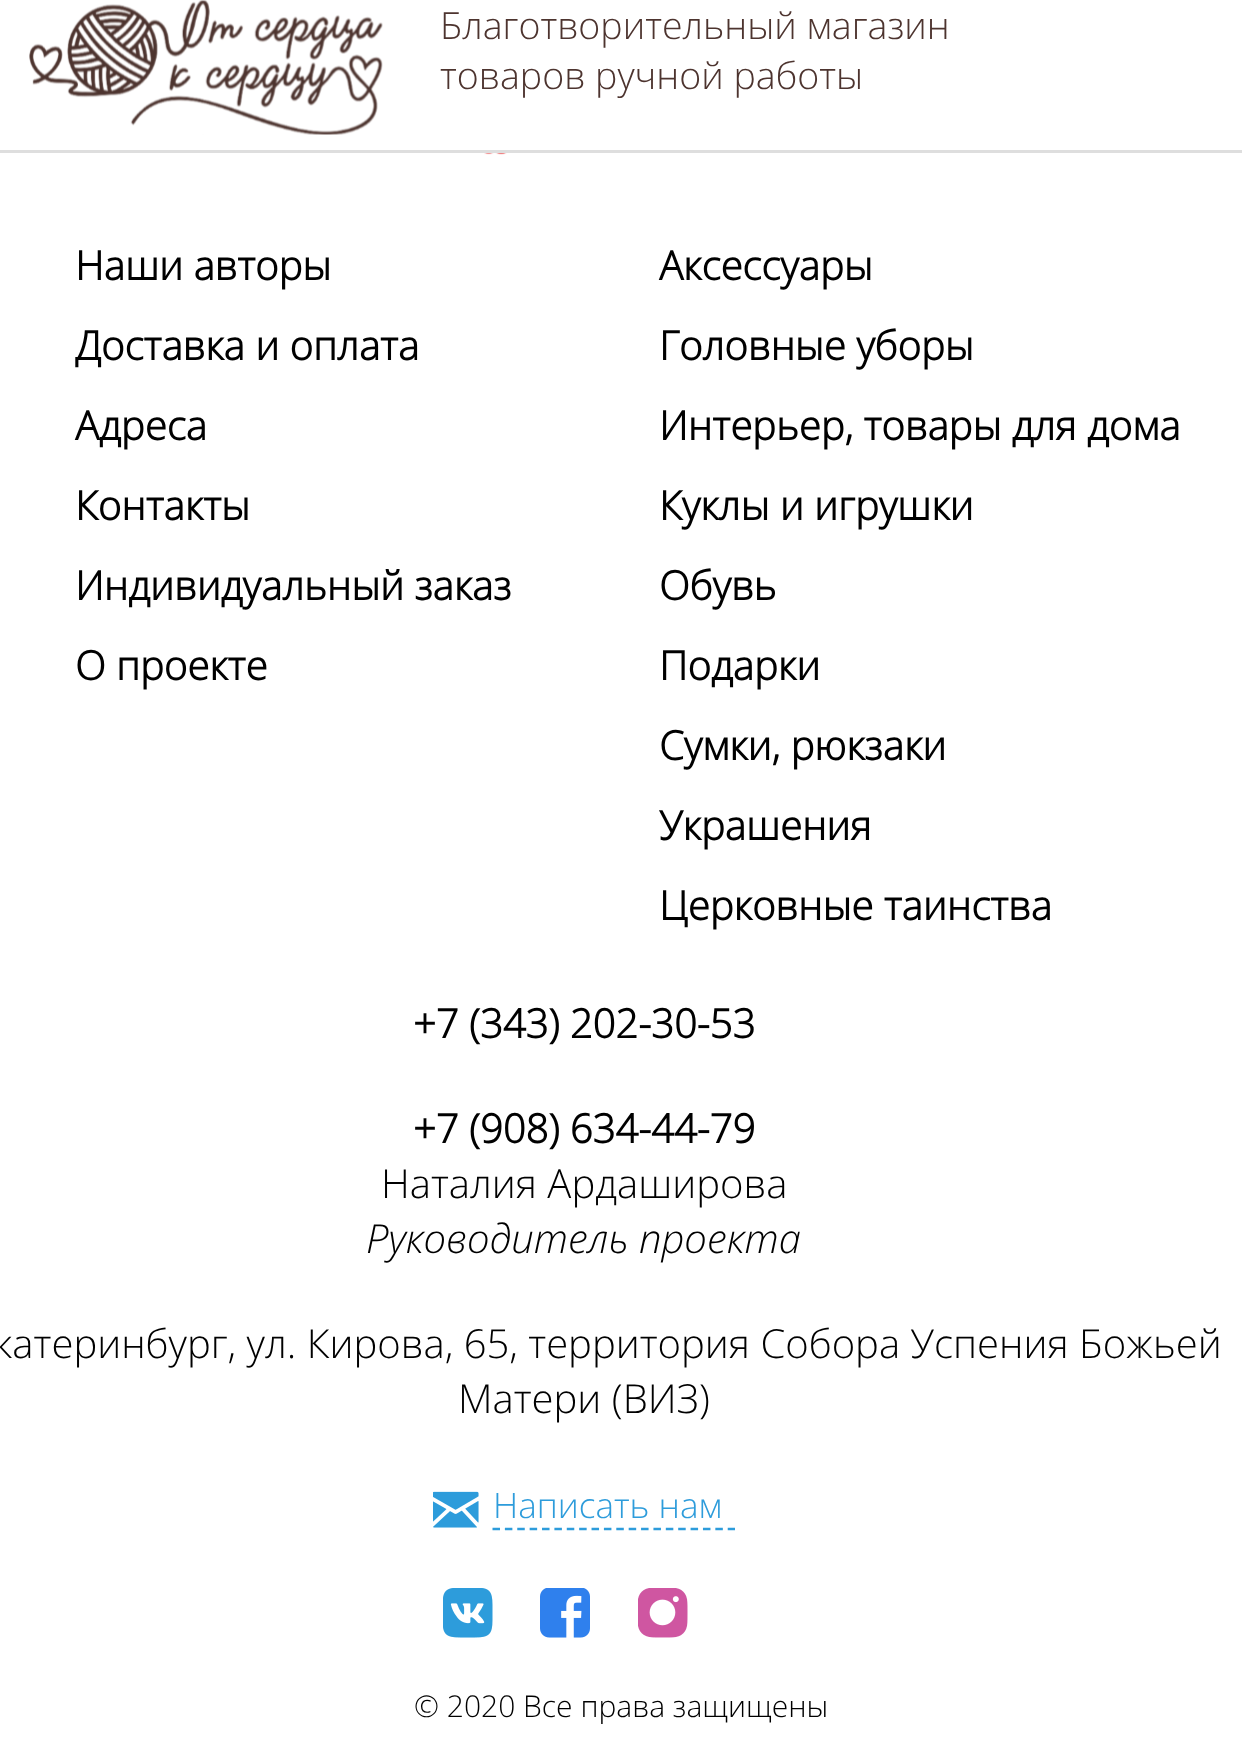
<!DOCTYPE html>
<meta charset="utf-8">
<style>body { margin: 0 } canvas { display: block }</style>
<canvas id="canvas" width="1242" height="1762"></canvas>
<img id="img1" src="img_01.png" hidden>
<img id="img2" src="img_02.png" hidden>
<img id="img3" src="img_03.png" hidden>
<img id="img4" src="img_04.png" hidden>
<img id="img5" src="img_05.png" hidden>
<img id="img6" src="img_06.png" hidden>
<script>
window.onload = function () {
	const canvas = document.getElementById("canvas");
	const ctx = canvas.getContext("2d");
	ctx.miterLimit = 4;
	ctx.fontKerning = "normal";
	function txt(s, x, y) {
		ctx.fillText(s, x, y);
	}
	function fill(x, y, w, h) {
		ctx.fillRect(x, y, w, h);
	}
	function img(id, x, y, w, h) {
		ctx.drawImage(document.getElementById(id), x, y, w, h);
	}

	ctx.fillStyle = "#FFFFFF";
	fill(0, 0, 1242, 1762);
	ctx.fillStyle = "#DEDEDE";
	fill(0, 150, 1242, 3);
	img("img1", 29, 0, 354, 135);
	img("img2", 433, 1491, 46, 37);
	ctx.beginPath();
	ctx.moveTo(492.5, 1529);
	ctx.lineTo(735, 1529);
	ctx.strokeStyle = "#2D9CDB";
	ctx.lineWidth = 2.5;
	ctx.setLineDash([7.5, 4.88]);
	ctx.stroke();
	img("img3", 443, 1588, 50, 50);
	img("img4", 540, 1588, 50, 50);
	img("img5", 638, 1588, 50, 50);
	img("img6", 484, 153, 23, 2);
	ctx.font = "300 37.5px Open Sans";
	ctx.fillStyle = "#4D342F";
	txt("Благотворительный магазин", 440, 39);
	txt("товаров ручной работы", 440, 89);
	ctx.font = "bold 40px Open Sans";
	ctx.fillStyle = "#000000";
	txt("Наши авторы", 75, 280);
	txt("Доставка и оплата", 75, 360);
	txt("Адреса", 75, 440);
	txt("Контакты", 75, 520);
	txt("Индивидуальный заказ", 75, 600);
	txt("О проекте", 75, 680);
	txt("Аксессуары", 659, 280);
	txt("Головные уборы", 659, 360);
	txt("Интерьер, товары для дома", 659, 440);
	txt("Куклы и игрушки", 659, 520);
	txt("Обувь", 659, 600);
	txt("Подарки", 659, 680);
	txt("Сумки, рюкзаки", 659, 760);
	txt("Украшения", 659, 840);
	txt("Церковные таинства", 659, 920);
	txt("+7 (343) 202-30-53", 413, 1038);
	txt("+7 (908) 634-44-79", 413, 1143);
	ctx.font = "300 40px Open Sans";
	txt("Наталия Ардаширова", 381, 1198);
	ctx.font = "italic 300 40px Open Sans";
	txt("Руководитель проекта", 366, 1253);
	ctx.font = "300 40px Open Sans";
	txt("катеринбург, ул. Кирова, 65, территория Собора Успения Божьей", -6, 1358);
	txt("Матери (ВИЗ)", 458, 1413);
	ctx.font = "300 35px Open Sans";
	ctx.fillStyle = "#2D9CDB";
	txt("Написать нам", 493, 1518);
	ctx.font = "300 30px Open Sans";
	ctx.fillStyle = "#000000";
	txt("© 2020 Все права защищены", 414, 1717);
};
</script>
